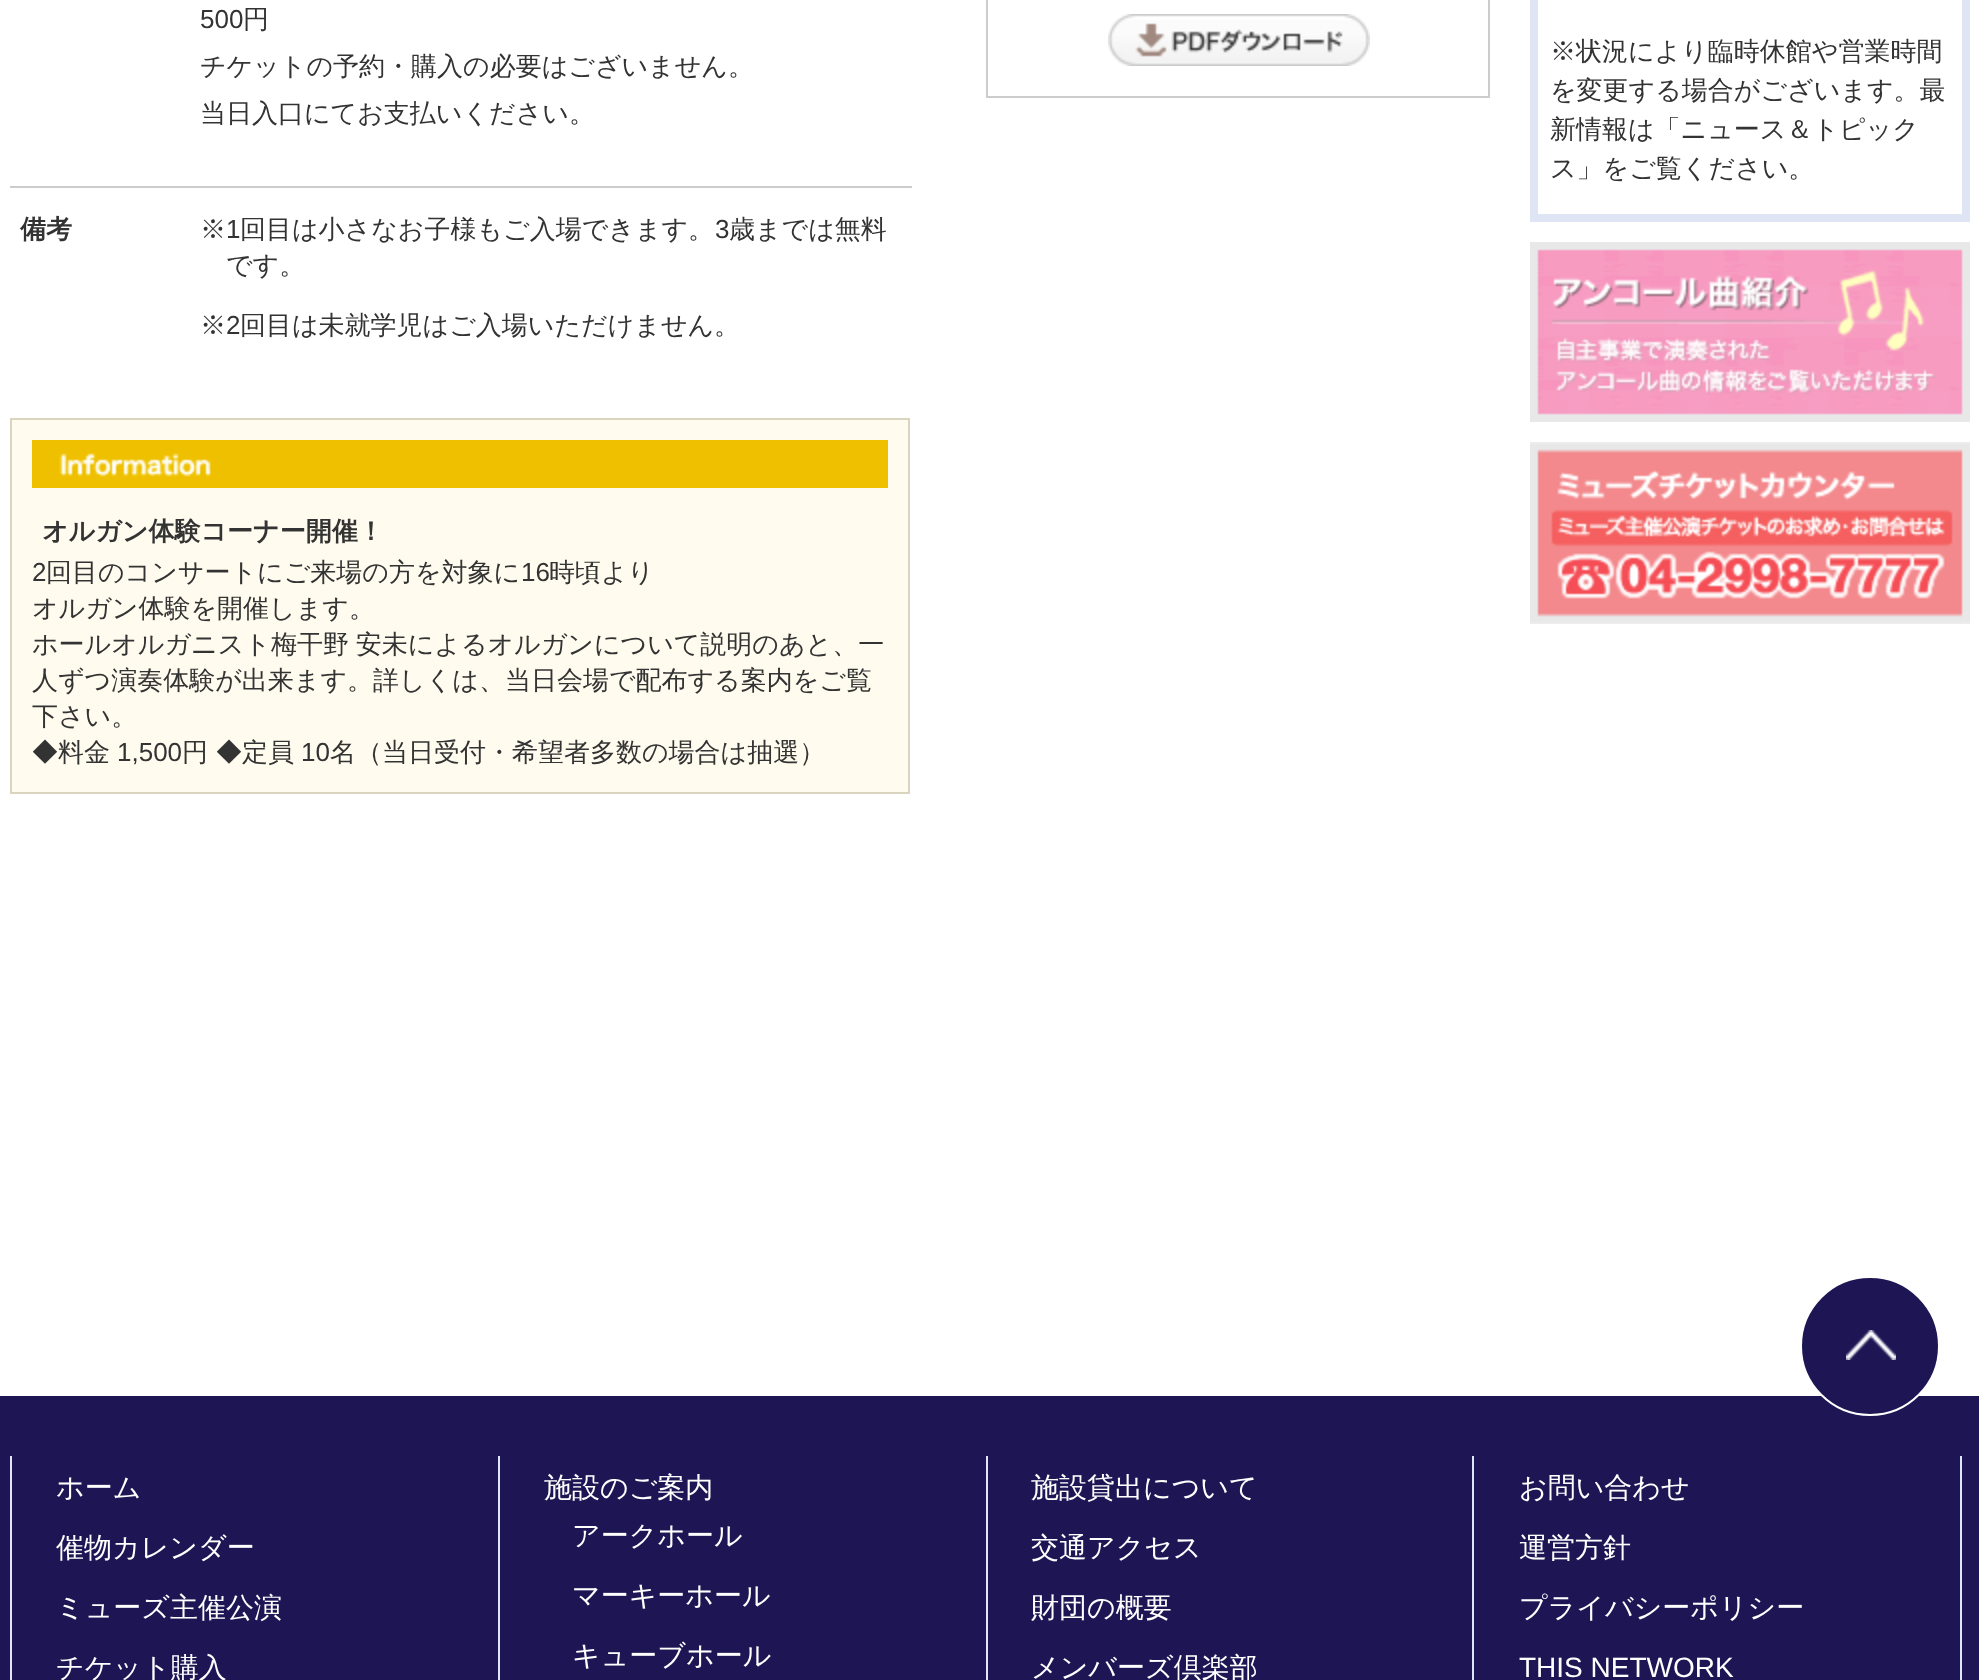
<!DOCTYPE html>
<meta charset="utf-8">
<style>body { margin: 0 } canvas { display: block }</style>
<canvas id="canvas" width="1979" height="1680"></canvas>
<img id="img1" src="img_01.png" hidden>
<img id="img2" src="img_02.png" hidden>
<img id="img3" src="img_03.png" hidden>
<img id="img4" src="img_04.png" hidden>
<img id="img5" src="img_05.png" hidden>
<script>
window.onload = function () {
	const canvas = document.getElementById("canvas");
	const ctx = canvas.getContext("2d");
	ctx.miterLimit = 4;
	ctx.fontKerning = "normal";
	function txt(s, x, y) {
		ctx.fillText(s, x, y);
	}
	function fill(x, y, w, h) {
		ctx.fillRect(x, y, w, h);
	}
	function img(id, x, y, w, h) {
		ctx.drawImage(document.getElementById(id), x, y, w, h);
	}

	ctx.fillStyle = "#FFFFFF";
	fill(0, 0, 1979, 1680);
	ctx.fillStyle = "#CCCCCC";
	fill(10, 186, 902, 2);
	ctx.fillStyle = "#FFFBEE";
	ctx.beginPath();
	ctx.rect(11, 419, 898, 374);
	ctx.fill();
	ctx.strokeStyle = "#DBD5C0";
	ctx.lineWidth = 2;
	ctx.stroke();
	img("img1", 32, 440, 856, 48);
	ctx.strokeStyle = "#CCCCCC";
	ctx.strokeRect(987, -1, 502, 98);
	img("img2", 1108, 14, 262, 52);
	ctx.fillStyle = "#DFE5F5";
	fill(1530, 0, 440, 222);
	ctx.fillStyle = "#FFFFFF";
	fill(1538, 0, 424, 214);
	img("img3", 1530, 242, 440, 180);
	img("img4", 1530, 442, 440, 182);
	ctx.fillStyle = "#1E1654";
	fill(0, 1396, 1979, 284);
	ctx.beginPath();
	ctx.arc(1870, 1346, 69, 0, Math.PI * 2);
	ctx.fill();
	ctx.strokeStyle = "#FFFFFF";
	ctx.stroke();
	img("img5", 1846, 1330, 50, 30);
	ctx.fillStyle = "#DFE5F5";
	fill(10, 1456, 2, 224);
	fill(498, 1456, 2, 224);
	fill(986, 1456, 2, 224);
	fill(1960, 1456, 2, 224);
	fill(1472, 1456, 2, 224);
	ctx.font = "26px Liberation Sans";
	ctx.fillStyle = "#333333";
	txt("500", 200, 28);
	ctx.font = "500 26px WenQuanYi Zen Hei";
	txt("円", 243, 28);
	txt("チケットの予約・購入の必要はございません。", 200, 75);
	txt("当日入口にてお支払いください。", 200, 122);
	ctx.font = "bold 26px WenQuanYi Zen Hei";
	txt("備考", 20, 238);
	ctx.font = "500 26px WenQuanYi Zen Hei";
	txt("※", 200, 238);
	ctx.font = "26px Liberation Sans";
	txt("1", 226, 238);
	ctx.font = "500 26px WenQuanYi Zen Hei";
	txt("回目は小さなお子様もご入場できます。", 240, 238);
	ctx.font = "26px Liberation Sans";
	txt("3", 715, 238);
	ctx.font = "500 26px WenQuanYi Zen Hei";
	txt("歳までは無料", 729, 238);
	txt("です。", 226, 274);
	txt("※", 200, 334);
	ctx.font = "26px Liberation Sans";
	txt("2", 226, 334);
	ctx.font = "500 26px WenQuanYi Zen Hei";
	txt("回目は未就学児はご入場いただけません。", 240, 334);
	ctx.font = "bold 26px WenQuanYi Zen Hei";
	txt("オルガン体験コーナー開催！", 42, 540);
	ctx.font = "26px Liberation Sans";
	txt("2", 32, 581);
	ctx.font = "500 26px WenQuanYi Zen Hei";
	txt("回目のコンサートにご来場の方を対象に", 46, 581);
	ctx.font = "26px Liberation Sans";
	txt("16", 521, 581);
	ctx.font = "500 26px WenQuanYi Zen Hei";
	txt("時頃より", 549, 581);
	txt("オルガン体験を開催します。", 32, 617);
	ctx.wordSpacing = "-1px";
	txt("ホールオルガニスト梅干野 安未によるオルガンについて説明のあと、一", 32, 653);
	ctx.wordSpacing = "0px";
	txt("人ずつ演奏体験が出来ます。詳しくは、当日会場で配布する案内をご覧", 32, 689);
	txt("下さい。", 32, 725);
	txt("◆料金", 32, 761);
	ctx.font = "26px Liberation Sans";
	txt("1,500", 117, 761);
	ctx.font = "500 26px WenQuanYi Zen Hei";
	txt("円", 182, 761);
	txt("◆定員", 216, 761);
	ctx.font = "26px Liberation Sans";
	txt("10", 301, 761);
	ctx.font = "500 26px WenQuanYi Zen Hei";
	txt("名（当日受付・希望者多数の場合は抽選）", 330, 761);
	txt("※状況により臨時休館や営業時間", 1550, 60);
	txt("を変更する場合がございます。最", 1550, 99);
	txt("新情報は「ニュース＆トピック", 1550, 138);
	txt("ス」をご覧ください。", 1550, 177);
	ctx.font = "500 28px WenQuanYi Zen Hei";
	ctx.fillStyle = "#FFFFFF";
	txt("ホーム", 56, 1497);
	txt("催物カレンダー", 56, 1557);
	txt("ミューズ主催公演", 56, 1617);
	txt("チケット購入", 56, 1677);
	txt("施設のご案内", 544, 1497);
	txt("アークホール", 572, 1545);
	txt("マーキーホール", 572, 1605);
	txt("キューブホール", 572, 1665);
	txt("施設貸出について", 1031, 1497);
	txt("交通アクセス", 1031, 1557);
	txt("財団の概要", 1031, 1617);
	txt("メンバーズ倶楽部", 1031, 1677);
	txt("お問い合わせ", 1519, 1497);
	txt("運営方針", 1519, 1557);
	txt("プライバシーポリシー", 1519, 1617);
	ctx.font = "28px Liberation Sans";
	txt("THIS NETWORK", 1519, 1677);
};
</script>
